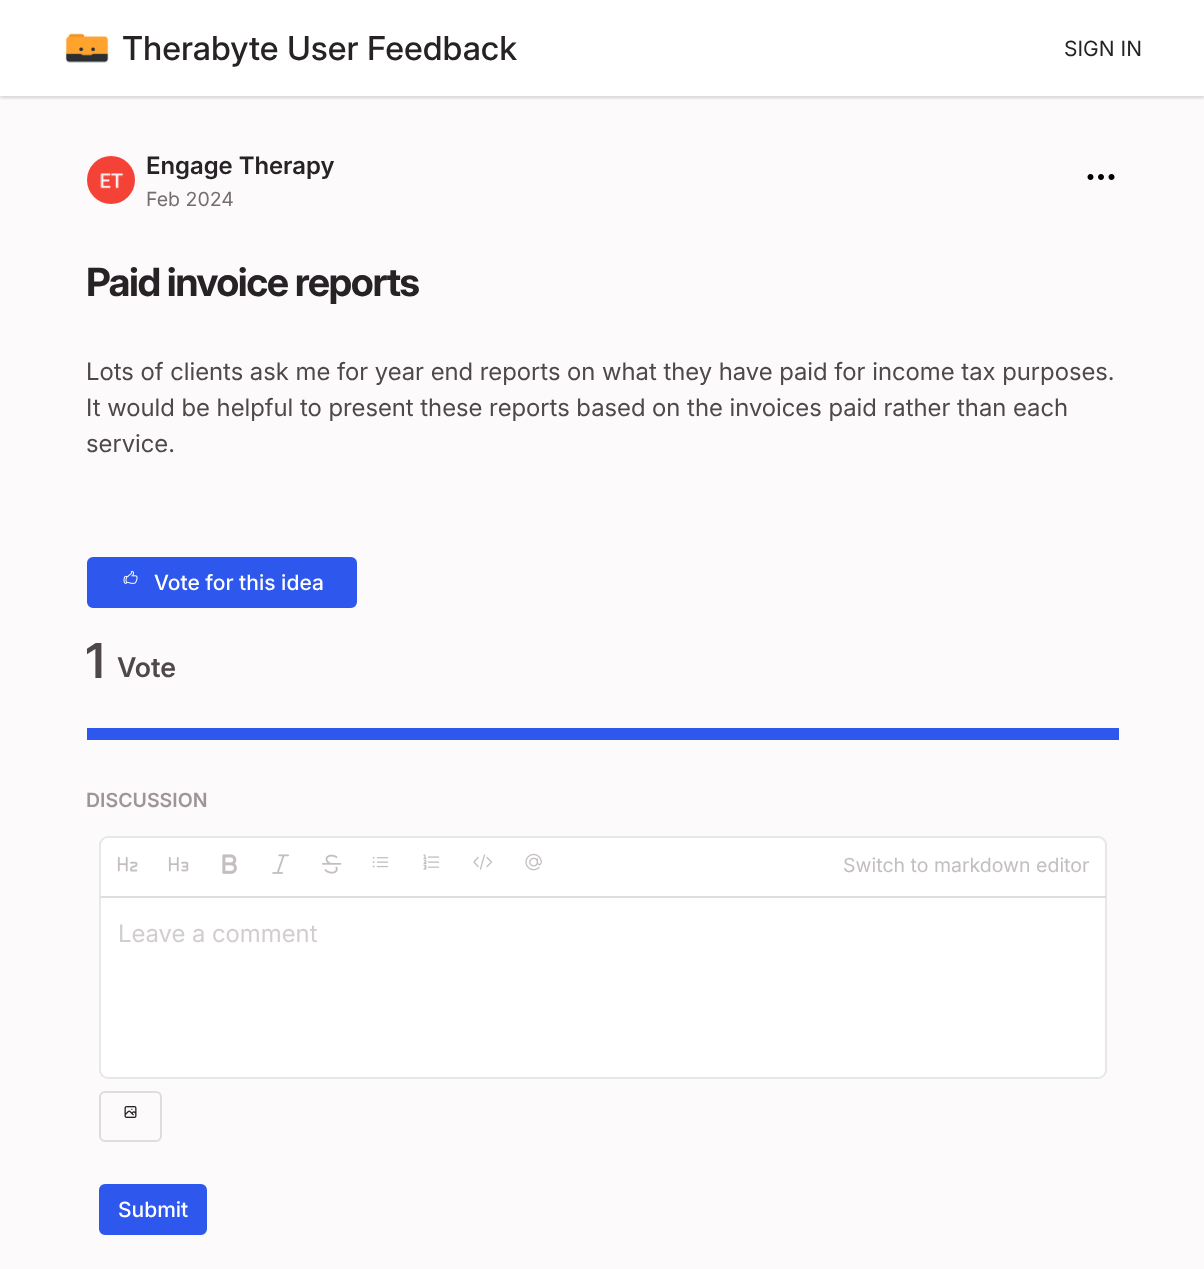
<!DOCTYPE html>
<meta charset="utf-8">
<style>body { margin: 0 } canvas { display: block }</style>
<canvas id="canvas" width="1204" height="1269"></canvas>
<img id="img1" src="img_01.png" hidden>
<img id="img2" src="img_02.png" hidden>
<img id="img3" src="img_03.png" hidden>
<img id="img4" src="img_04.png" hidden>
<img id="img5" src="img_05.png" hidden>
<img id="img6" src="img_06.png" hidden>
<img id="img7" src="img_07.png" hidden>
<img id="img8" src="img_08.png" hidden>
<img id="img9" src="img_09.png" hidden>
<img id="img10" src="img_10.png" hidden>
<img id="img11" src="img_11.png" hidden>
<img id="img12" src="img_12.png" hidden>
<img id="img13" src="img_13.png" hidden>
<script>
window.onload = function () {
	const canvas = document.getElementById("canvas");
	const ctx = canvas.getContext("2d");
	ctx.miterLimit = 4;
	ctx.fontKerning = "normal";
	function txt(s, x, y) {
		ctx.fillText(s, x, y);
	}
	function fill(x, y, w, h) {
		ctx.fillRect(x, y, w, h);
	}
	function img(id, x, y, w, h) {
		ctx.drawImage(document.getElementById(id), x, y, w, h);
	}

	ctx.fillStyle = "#FCFAFA";
	fill(0, 0, 1204, 1269);
	ctx.fillStyle = "#FFFFFF";
	fill(0, 0, 1204, 96);
	ctx.save();
	ctx.beginPath();
	ctx.rect(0, 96, 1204, 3);
	ctx.clip();
	ctx.fillStyle = "rgba(0, 0, 0, 0.06)";
	ctx.filter = "blur(1.5px)";
	ctx.beginPath();
	ctx.rect(0, 2, 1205, 96);
	ctx.fill();
	ctx.filter = "none";
	ctx.restore();
	ctx.save();
	ctx.beginPath();
	ctx.rect(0, 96, 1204, 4);
	ctx.clip();
	ctx.fillStyle = "rgba(0, 0, 0, 0.1)";
	ctx.filter = "blur(2px)";
	ctx.beginPath();
	ctx.rect(0, 2, 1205, 96);
	ctx.fill();
	ctx.filter = "none";
	ctx.restore();
	img("img1", 65, 33, 44, 30);
	img("img2", 87, 156, 48, 48);
	img("img3", 1087, 174, 28, 6);
	ctx.fillStyle = "#2D57ED";
	ctx.beginPath();
	ctx.roundRect(88, 558, 268, 49, 5);
	ctx.fill();
	ctx.strokeStyle = "#2D57ED";
	ctx.lineWidth = 2;
	ctx.stroke();
	img("img4", 123, 570, 15, 14);
	fill(87, 728, 1032, 12);
	ctx.fillStyle = "#FFFFFF";
	ctx.beginPath();
	ctx.roundRect(100, 837, 1006, 241, 8);
	ctx.fill();
	ctx.strokeStyle = "#E5E7EB";
	ctx.stroke();
	ctx.fillStyle = "#E0DCDD";
	fill(101, 896, 1005, 2);
	img("img5", 117, 857, 21, 15);
	img("img6", 168, 857, 21, 15);
	img("img7", 222, 854, 15, 20);
	img("img8", 272, 854, 17, 20);
	img("img9", 322, 854, 20, 20);
	img("img10", 372, 856, 17, 12);
	img("img11", 423, 854, 17, 16);
	ctx.beginPath();
	ctx.moveTo(487, 857.5);
	ctx.lineTo(491.5, 862);
	ctx.lineTo(487, 866.5);
	ctx.moveTo(478, 866.5);
	ctx.lineTo(474, 862);
	ctx.lineTo(478, 857.5);
	ctx.moveTo(484.5, 855);
	ctx.lineTo(480.5, 869);
	ctx.strokeStyle = "#C4BEC0";
	ctx.lineWidth = 1.3;
	ctx.lineCap = "round";
	ctx.lineJoin = "round";
	ctx.stroke();
	img("img12", 525, 853, 17, 18);
	ctx.beginPath();
	ctx.roundRect(100, 1092, 61, 49, 5);
	ctx.strokeStyle = "#E0DCDD";
	ctx.lineWidth = 2;
	ctx.lineJoin = "miter";
	ctx.stroke();
	img("img13", 124, 1106, 13, 12);
	ctx.fillStyle = "#2D57ED";
	ctx.beginPath();
	ctx.roundRect(100, 1185, 106, 49, 5);
	ctx.fill();
	ctx.strokeStyle = "#2D57ED";
	ctx.stroke();
	ctx.font = "500 33px Inter";
	ctx.fillStyle = "#262225";
	txt("Therabyte User Feedback", 122, 60);
	ctx.font = "21px Inter";
	txt("SIGN IN", 1064, 56);
	ctx.font = "600 24px Inter";
	txt("Engage Therapy", 146, 174);
	ctx.font = "19.5px Inter";
	ctx.fillStyle = "#756E71";
	txt("Feb 2024", 146, 206);
	ctx.letterSpacing = "-1.5px";
	ctx.font = "bold 39px Inter";
	ctx.fillStyle = "#262225";
	txt("Paid invoice reports", 86, 296);
	ctx.letterSpacing = "0px";
	ctx.font = "24px 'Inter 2'";
	ctx.fillStyle = "#4E474B";
	txt("Lots of clients ask me for year end reports on what they have paid for income tax purposes.", 86, 380);
	txt("It would be helpful to present these reports based on the invoices paid rather than each", 86, 416);
	txt("service.", 86, 452);
	ctx.font = "500 21px 'Inter 2'";
	ctx.fillStyle = "#FFFFFF";
	txt("Vote for this idea", 154, 590);
	ctx.font = "600 48px 'Inter 2'";
	ctx.fillStyle = "#4E474B";
	txt("1", 86, 678);
	ctx.font = "600 27px 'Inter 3'";
	txt("Vote", 117, 677);
	ctx.font = "600 19.5px 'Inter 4'";
	ctx.fillStyle = "#9D9598";
	txt("DISCUSSION", 86, 807);
	ctx.font = "19.5px Inter";
	ctx.fillStyle = "#C4BEC0";
	txt("Switch to markdown editor", 843, 872);
	ctx.font = "24px 'Inter 2'";
	ctx.fillStyle = "#D2CDCF";
	txt("Leave a comment", 118, 942);
	ctx.font = "500 21px 'Inter 2'";
	ctx.fillStyle = "#FFFFFF";
	txt("Submit", 118, 1217);
};
</script>
